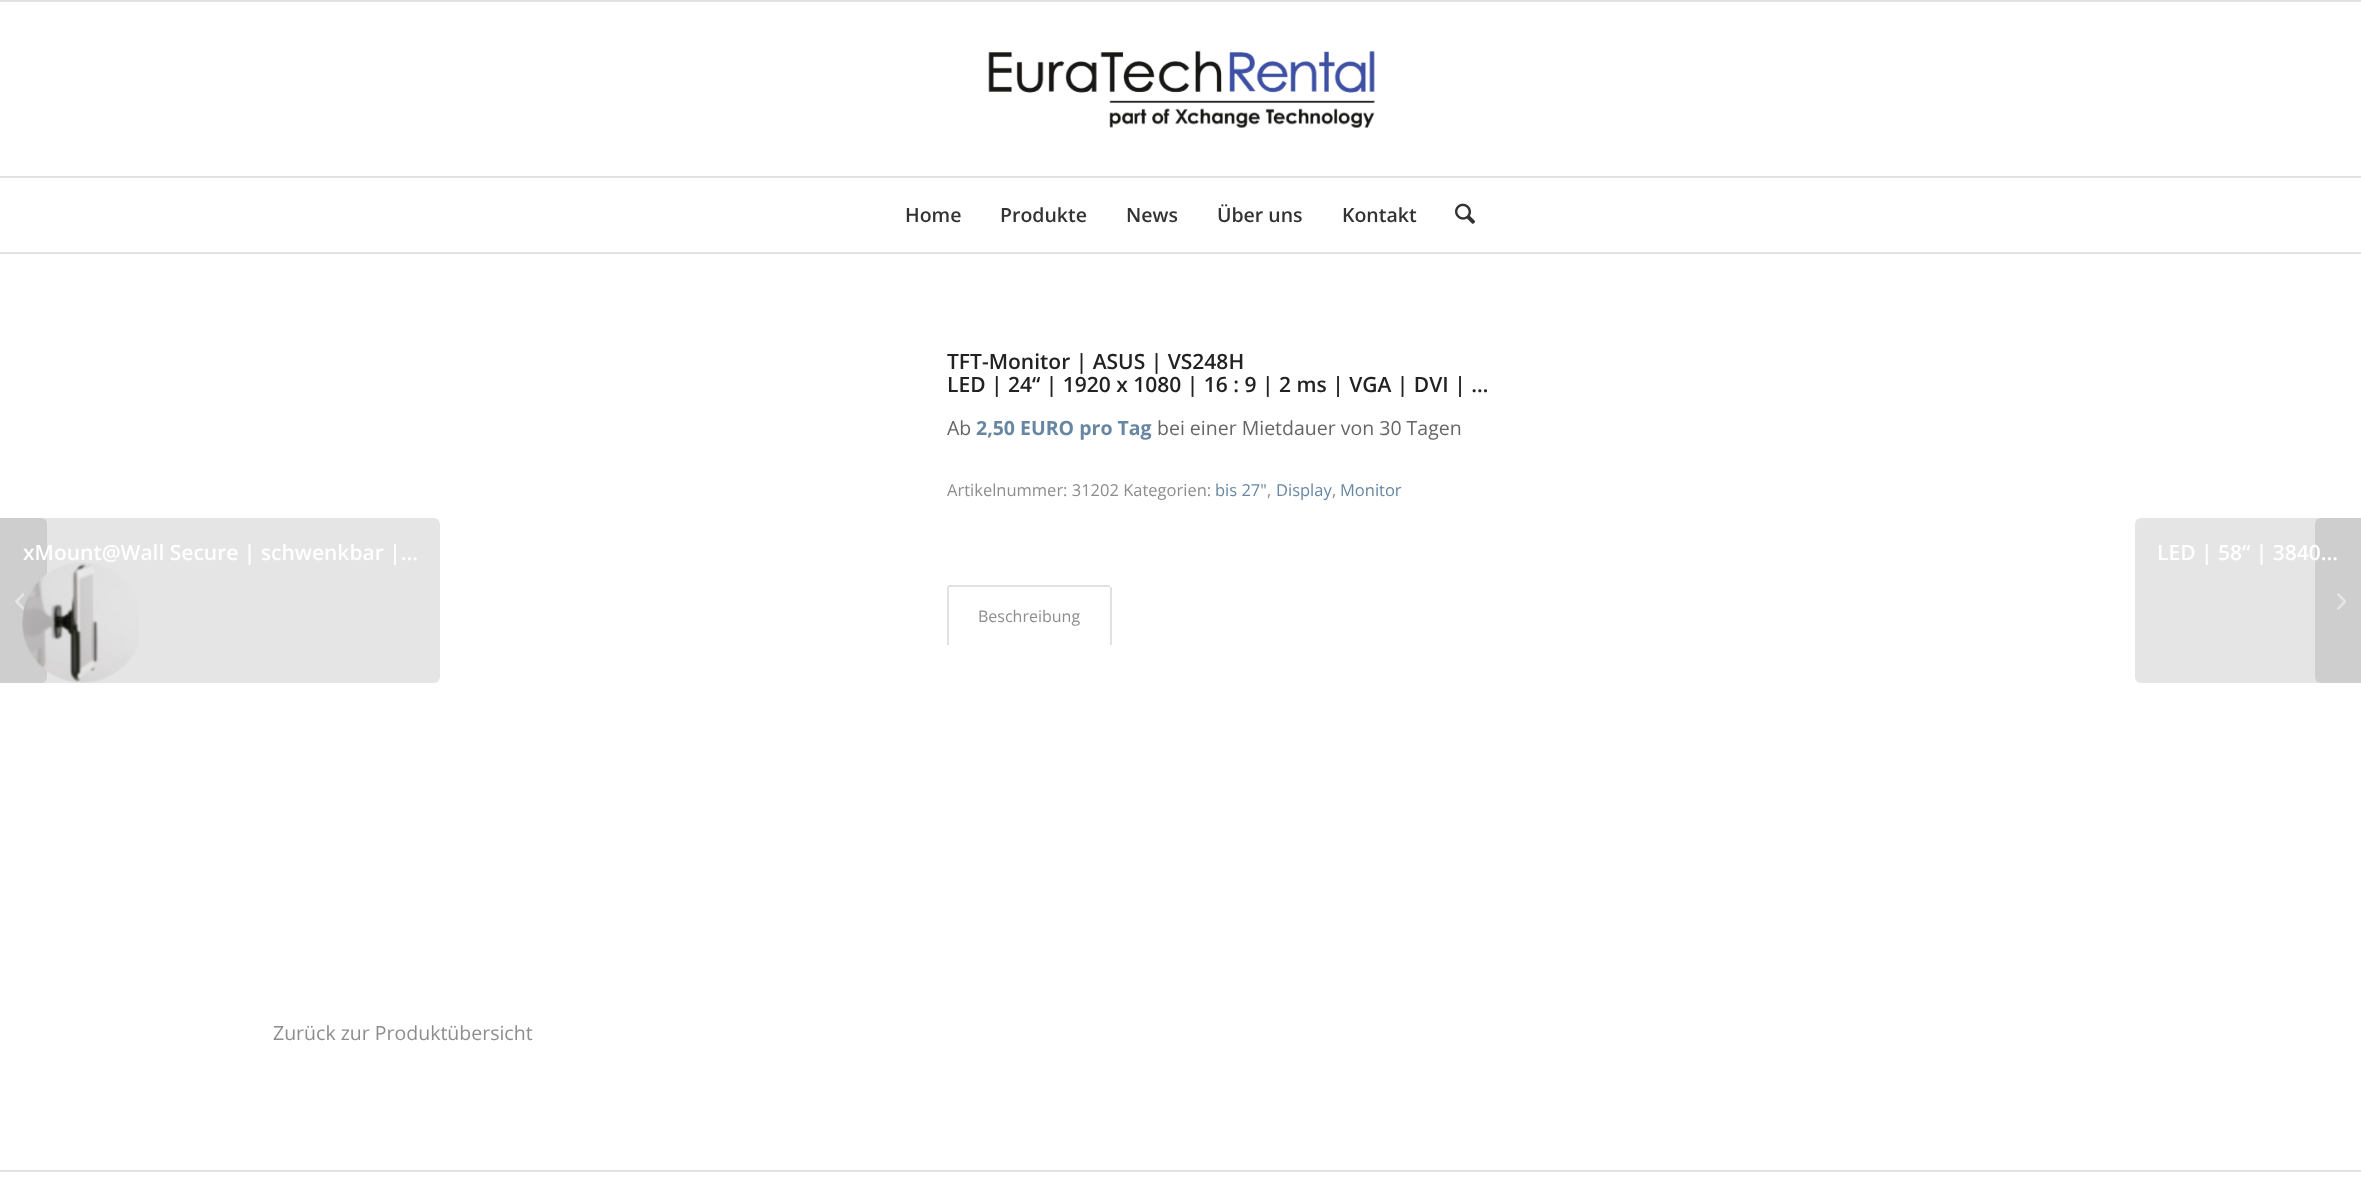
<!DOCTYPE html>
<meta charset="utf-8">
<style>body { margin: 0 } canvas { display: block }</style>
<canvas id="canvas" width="2361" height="1199"></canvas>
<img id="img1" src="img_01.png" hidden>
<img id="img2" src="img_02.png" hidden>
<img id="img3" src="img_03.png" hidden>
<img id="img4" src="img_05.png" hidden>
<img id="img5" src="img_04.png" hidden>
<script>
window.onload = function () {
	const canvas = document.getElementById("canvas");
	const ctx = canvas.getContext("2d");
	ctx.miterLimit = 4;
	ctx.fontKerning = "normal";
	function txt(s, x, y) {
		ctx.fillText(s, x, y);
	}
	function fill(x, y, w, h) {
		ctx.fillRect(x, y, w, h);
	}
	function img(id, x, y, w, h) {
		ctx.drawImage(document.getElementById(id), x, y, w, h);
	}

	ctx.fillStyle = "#FFFFFF";
	fill(0, 0, 2361, 1199);
	ctx.fillStyle = "#E1E1E1";
	fill(0, 0, 2361, 2);
	fill(0, 252, 2361, 2);
	img("img1", 988, 50, 387, 79);
	fill(0, 176, 2361, 2);
	img("img2", 1455, 203, 21, 21);
	ctx.fillStyle = "#E6E6E6";
	ctx.beginPath();
	ctx.roundRect(0, 518, 47, 165, [0, 6, 6, 0]);
	ctx.fill();
	img("img3", 15, 593, 9, 17);
	ctx.fillStyle = "#E1E1E1";
	fill(948, 585, 162, 2);
	fill(1110, 587, 2, 58);
	fill(947, 587, 2, 58);
	fill(0, 1170, 2361, 2);
	ctx.fillStyle = "rgba(0, 0, 0, 0.1)";
	ctx.beginPath();
	ctx.roundRect(0, 518, 440, 165, [0, 6, 6, 0]);
	ctx.fill();
	ctx.fillStyle = "#E6E6E6";
	ctx.beginPath();
	ctx.roundRect(2315, 518, 46, 165, [6, 0, 0, 6]);
	ctx.fill();
	img("img4", 2337, 593, 9, 17);
	ctx.fillStyle = "rgba(0, 0, 0, 0.1)";
	ctx.beginPath();
	ctx.roundRect(2135, 518, 226, 165, [6, 0, 0, 6]);
	ctx.fill();
	ctx.font = "600 19.5px Open Sans";
	ctx.fillStyle = "#333333";
	txt("Home", 905, 222);
	txt("Produkte", 1000, 222);
	txt("News", 1126, 222);
	txt("Über uns", 1217, 222);
	txt("Kontakt", 1342, 222);
	ctx.font = "600 21px Open Sans";
	ctx.fillStyle = "#222222";
	txt("TFT-Monitor | ASUS | VS248H", 947, 369);
	txt("LED | 24“ | 1920 x 1080 | 16 : 9 | 2 ms | VGA | DVI | …", 947, 392);
	ctx.font = "19.5px Open Sans";
	ctx.fillStyle = "#666666";
	txt("Ab", 947, 435);
	ctx.font = "bold 19.5px Open Sans";
	ctx.fillStyle = "#6786A1";
	txt("2,50 EURO pro Tag", 976, 435);
	ctx.font = "19.5px Open Sans";
	ctx.fillStyle = "#666666";
	txt("bei einer Mietdauer von 30 Tagen", 1157, 435);
	ctx.font = "16.5px Open Sans";
	ctx.fillStyle = "#8D8D8D";
	txt("Artikelnummer: 31202 Kategorien:", 947, 496);
	ctx.fillStyle = "#6786A1";
	txt("bis 27\"", 1215, 496);
	ctx.fillStyle = "#8D8D8D";
	txt(",", 1267, 496);
	ctx.fillStyle = "#6786A1";
	txt("Display", 1276, 496);
	ctx.fillStyle = "#8D8D8D";
	txt(",", 1332, 496);
	ctx.fillStyle = "#6786A1";
	txt("Monitor", 1340, 496);
	ctx.font = "16px Open Sans";
	ctx.fillStyle = "#8D8D8D";
	txt("Beschreibung", 978, 622);
	ctx.font = "19.5px Open Sans";
	txt("Zurück zur Produktübersicht", 273, 1040);
	ctx.font = "600 21px Open Sans";
	ctx.fillStyle = "#FFFFFF";
	txt("xMount@Wall Secure | schwenkbar |...", 23, 560);
	img("img5", 22, 562, 117, 121);
	txt("LED | 58“ | 3840...", 2157, 560);
};
</script>
